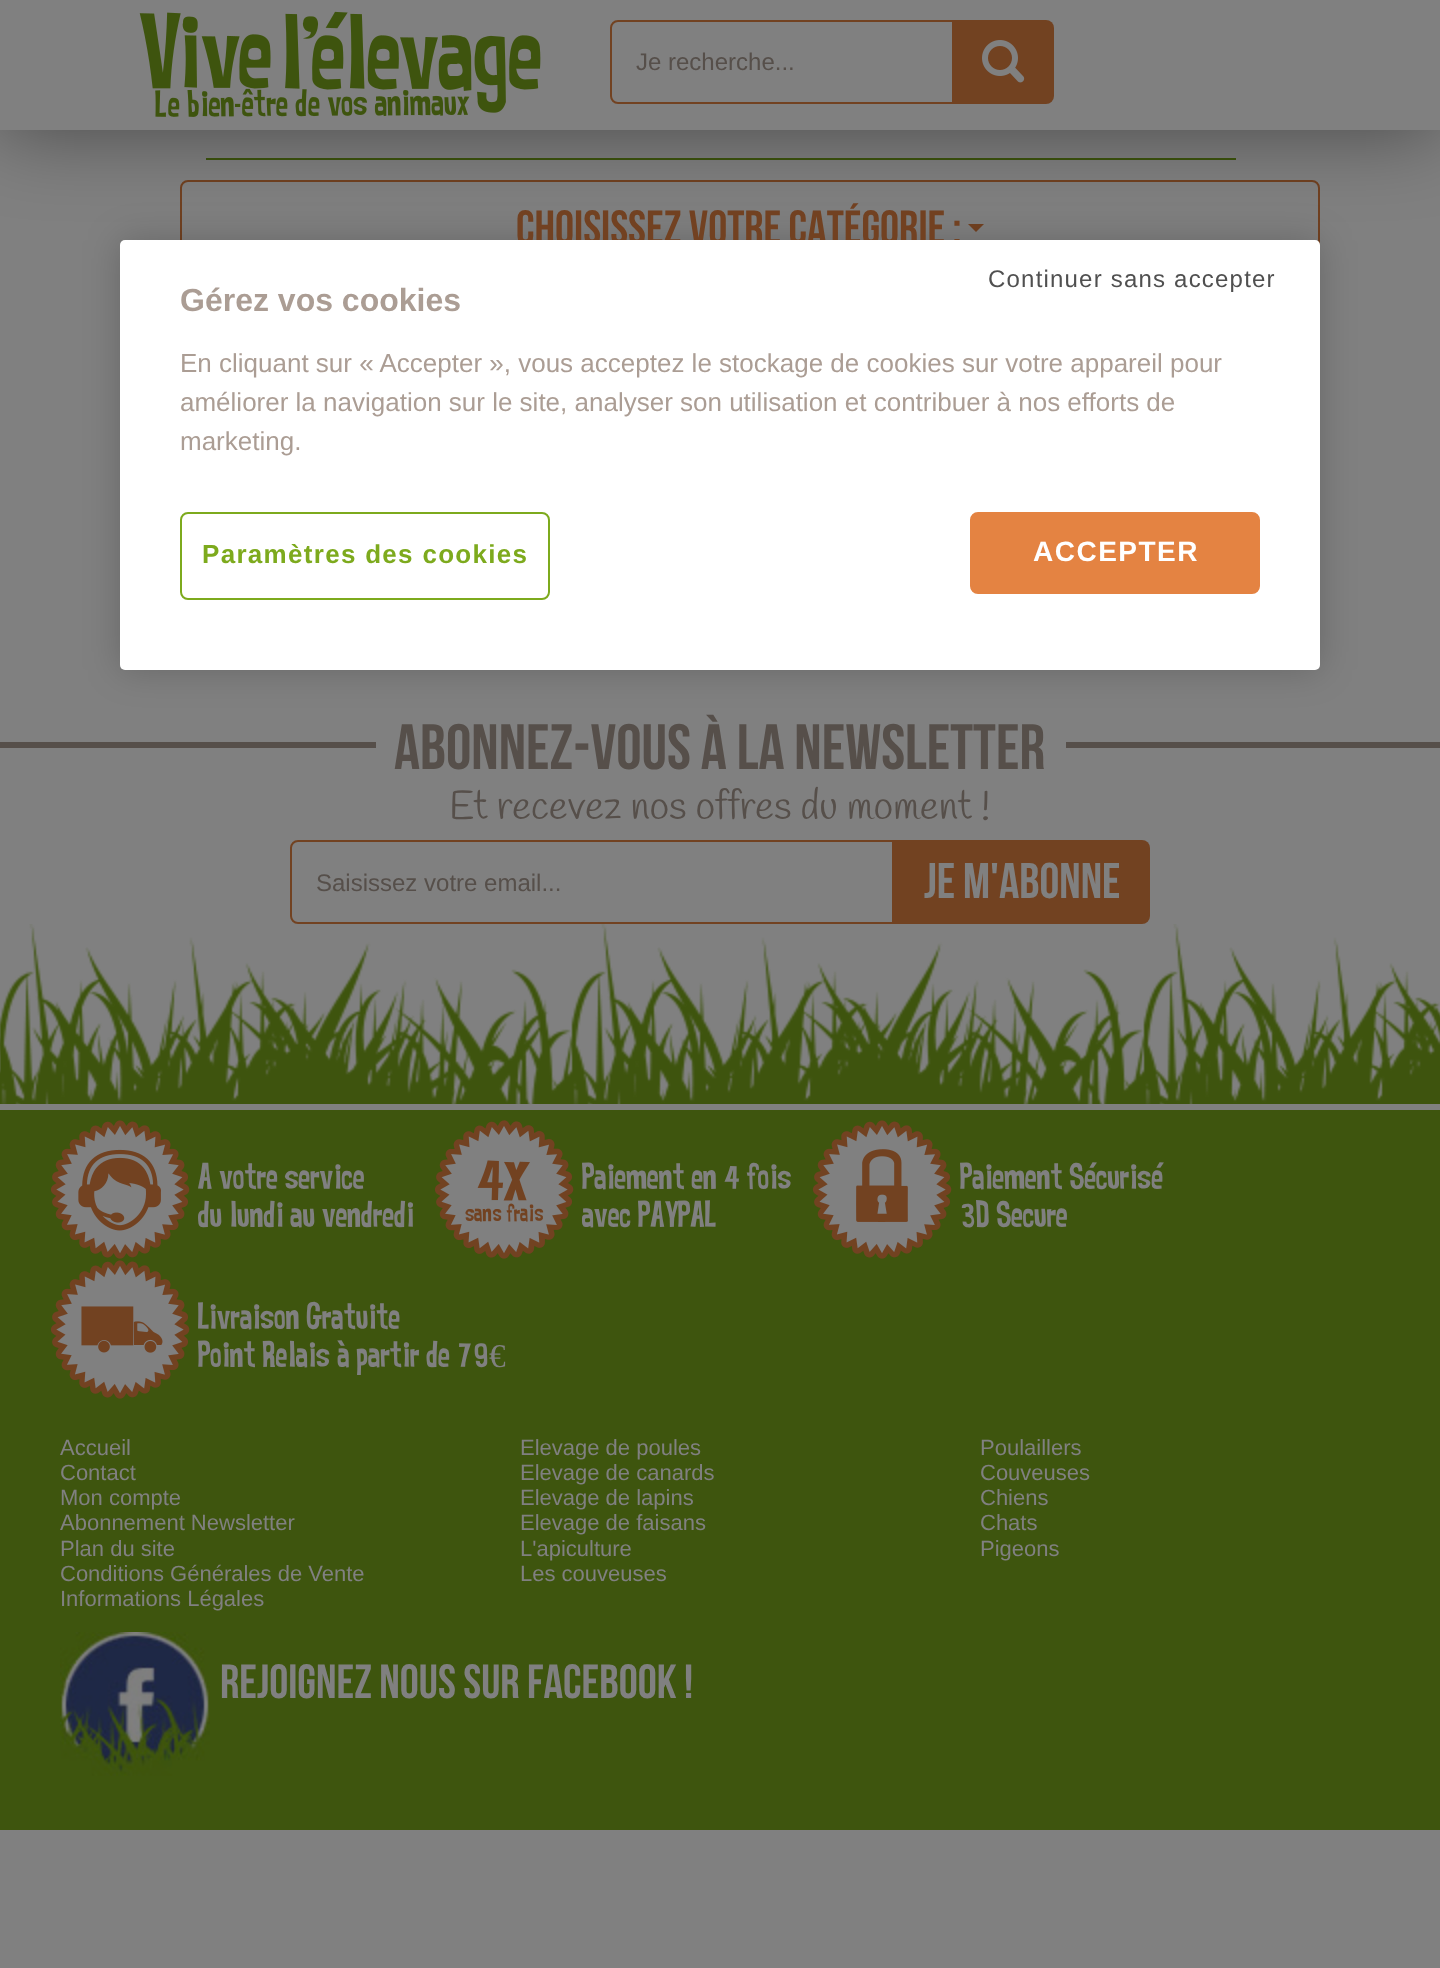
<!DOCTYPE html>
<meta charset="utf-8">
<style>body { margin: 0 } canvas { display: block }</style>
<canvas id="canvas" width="1440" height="1968"></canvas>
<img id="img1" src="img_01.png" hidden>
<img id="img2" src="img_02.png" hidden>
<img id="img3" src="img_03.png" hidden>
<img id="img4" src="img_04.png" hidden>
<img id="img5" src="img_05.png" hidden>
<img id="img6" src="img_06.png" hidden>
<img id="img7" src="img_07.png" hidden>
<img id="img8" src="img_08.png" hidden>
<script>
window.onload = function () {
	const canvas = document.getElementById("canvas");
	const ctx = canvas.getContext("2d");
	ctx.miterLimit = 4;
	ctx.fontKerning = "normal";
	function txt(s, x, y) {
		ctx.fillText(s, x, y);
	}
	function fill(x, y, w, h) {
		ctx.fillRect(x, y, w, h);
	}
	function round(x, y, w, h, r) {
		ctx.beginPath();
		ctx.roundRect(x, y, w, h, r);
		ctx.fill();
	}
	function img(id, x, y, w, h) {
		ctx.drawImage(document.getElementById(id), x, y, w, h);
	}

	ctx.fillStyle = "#808080";
	fill(0, 0, 1440, 1968);
	ctx.fillStyle = "#3E550E";
	fill(206, 158, 1030, 2);
	ctx.beginPath();
	ctx.roundRect(181, 181, 1138, 94, 7);
	ctx.strokeStyle = "#714121";
	ctx.lineWidth = 2;
	ctx.stroke();
	ctx.fillStyle = "#724121";
	ctx.beginPath();
	ctx.moveTo(968, 224);
	ctx.lineTo(984, 224);
	ctx.lineTo(976, 232);
	ctx.closePath();
	ctx.fill();
	ctx.fillStyle = "rgba(0, 0, 0, 0.42)";
	ctx.filter = "blur(40px)";
	ctx.beginPath();
	ctx.rect(0, 2, 1440, 130);
	ctx.fill();
	ctx.filter = "none";
	ctx.fillStyle = "#808080";
	fill(0, 0, 1440, 130);
	img("img1", 139, 11, 402, 106);
	ctx.beginPath();
	ctx.roundRect(611, 21, 342, 82, [7, 0, 0, 7]);
	ctx.strokeStyle = "#724221";
	ctx.stroke();
	ctx.fillStyle = "#724221";
	ctx.beginPath();
	ctx.roundRect(954, 20, 100, 84, [0, 8, 8, 0]);
	ctx.fill();
	img("img2", 982, 40, 43, 43);
	ctx.fillStyle = "#564F4A";
	fill(0, 742, 1440, 6);
	ctx.fillStyle = "#808080";
	fill(376, 742, 690, 6);
	ctx.beginPath();
	ctx.roundRect(291, 841, 602, 82, [7, 0, 0, 7]);
	ctx.stroke();
	ctx.fillStyle = "#724221";
	ctx.beginPath();
	ctx.roundRect(894, 840, 256, 84, [0, 8, 8, 0]);
	ctx.fill();
	img("img3", 0, 924, 1440, 180);
	ctx.fillStyle = "#3E550E";
	fill(0, 1110, 1440, 720);
	img("img4", 50, 1120, 140, 139);
	img("img5", 434, 1120, 140, 139);
	img("img6", 812, 1120, 140, 139);
	img("img7", 50, 1260, 140, 139);
	img("img8", 60, 1632, 150, 144);
	ctx.fillStyle = "rgba(0, 0, 0, 0.2)";
	ctx.filter = "blur(18px)";
	ctx.beginPath();
	ctx.roundRect(120, 240, 1200, 430, 5);
	ctx.fill();
	ctx.filter = "none";
	ctx.font = "24px Liberation Sans";
	ctx.fillStyle = "#564F4A";
	txt("Je recherche...", 636, 70);
	ctx.font = "48px Bebas Neue";
	ctx.fillStyle = "#724121";
	txt("Choisissez votre catégorie :", 516, 244);
	ctx.font = "64px Bebas Neue";
	ctx.fillStyle = "#564F4A";
	txt("Abonnez-vous à la newsletter", 394, 769);
	ctx.font = "40px Handlee";
	txt("Et recevez nos offres du moment !", 449, 819);
	ctx.font = "24px Liberation Sans";
	txt("Saisissez votre email...", 316, 891);
	ctx.font = "50px Bebas Neue";
	ctx.fillStyle = "#808080";
	txt("JE M'abonne", 924, 898);
	ctx.font = "33.25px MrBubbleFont";
	txt("A votre service", 198, 1189);
	txt("du lundi au vendredi", 198, 1227);
	txt("Paiement en 4 fois", 582, 1189);
	txt("avec PAYPAL", 582, 1227);
	txt("Paiement Sécurisé", 960, 1189);
	txt("3D Secure", 960, 1227);
	txt("Livraison Gratuite", 198, 1329);
	txt("Point Relais à partir de 79", 198, 1367);
	ctx.font = "33.25px Liberation Serif";
	txt("€", 489, 1367);
	ctx.font = "22px Liberation Sans";
	txt("Accueil", 60, 1455);
	txt("Contact", 60, 1480);
	txt("Mon compte", 60, 1505);
	txt("Abonnement Newsletter", 60, 1530);
	txt("Plan du site", 60, 1556);
	txt("Conditions Générales de Vente", 60, 1581);
	txt("Informations Légales", 60, 1606);
	txt("Elevage de poules", 520, 1455);
	txt("Elevage de canards", 520, 1480);
	txt("Elevage de lapins", 520, 1505);
	txt("Elevage de faisans", 520, 1530);
	txt("L'apiculture", 520, 1556);
	txt("Les couveuses", 520, 1581);
	txt("Poulaillers", 980, 1455);
	txt("Couveuses", 980, 1480);
	txt("Chiens", 980, 1505);
	txt("Chats", 980, 1530);
	txt("Pigeons", 980, 1556);
	ctx.font = "48px Bebas Neue";
	txt("Rejoignez nous sur facebook !", 220, 1698);
	ctx.fillStyle = "#FFFFFF";
	round(120, 240, 1200, 430, 5);
	ctx.beginPath();
	ctx.roundRect(181, 513, 368, 86, 7);
	ctx.strokeStyle = "#7DAA1D";
	ctx.stroke();
	ctx.letterSpacing = "1.3px";
	ctx.font = "bold 26px Liberation Sans";
	ctx.fillStyle = "#7DAA1D";
	txt("Paramètres des cookies", 202, 563);
	ctx.letterSpacing = "1.2px";
	ctx.font = "24px Liberation Sans";
	ctx.fillStyle = "#505050";
	txt("Continuer sans accepter", 988, 287);
	ctx.fillStyle = "#E48342";
	ctx.beginPath();
	ctx.roundRect(971, 513, 288, 80, 7);
	ctx.fill();
	ctx.strokeStyle = "#E48342";
	ctx.stroke();
	ctx.letterSpacing = "1.5px";
	ctx.font = "bold 28px Liberation Sans";
	ctx.fillStyle = "#FFFFFF";
	txt("ACCEPTER", 1033, 561);
	ctx.letterSpacing = "0px";
	ctx.font = "bold 32px Liberation Sans";
	ctx.fillStyle = "#AB9D94";
	txt("Gérez vos cookies", 180, 311);
	ctx.font = "26px Liberation Sans";
	txt("En cliquant sur « Accepter », vous acceptez le stockage de cookies sur votre appareil pour", 180, 372);
	txt("améliorer la navigation sur le site, analyser son utilisation et contribuer à nos efforts de", 180, 411);
	txt("marketing.", 180, 450);
};
</script>
